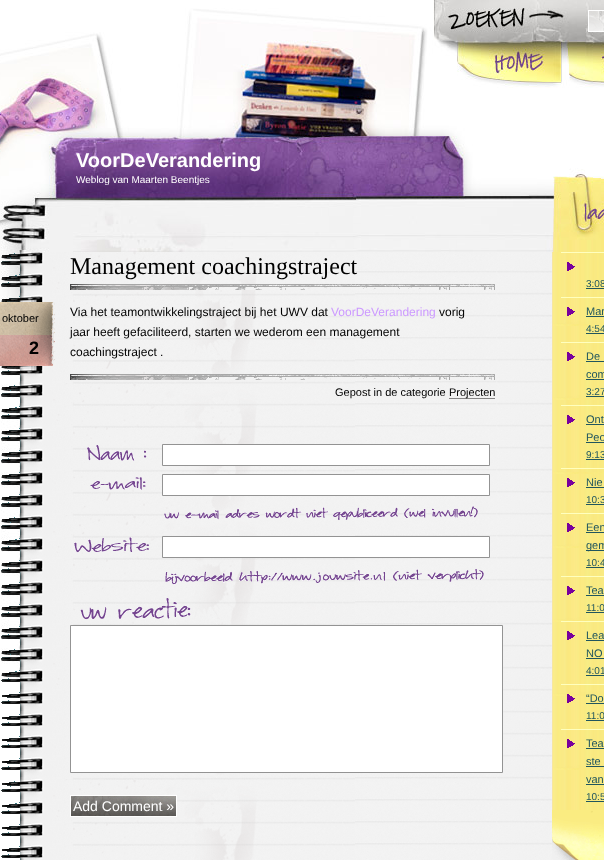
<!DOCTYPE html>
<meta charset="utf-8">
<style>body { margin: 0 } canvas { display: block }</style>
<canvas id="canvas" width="604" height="860"></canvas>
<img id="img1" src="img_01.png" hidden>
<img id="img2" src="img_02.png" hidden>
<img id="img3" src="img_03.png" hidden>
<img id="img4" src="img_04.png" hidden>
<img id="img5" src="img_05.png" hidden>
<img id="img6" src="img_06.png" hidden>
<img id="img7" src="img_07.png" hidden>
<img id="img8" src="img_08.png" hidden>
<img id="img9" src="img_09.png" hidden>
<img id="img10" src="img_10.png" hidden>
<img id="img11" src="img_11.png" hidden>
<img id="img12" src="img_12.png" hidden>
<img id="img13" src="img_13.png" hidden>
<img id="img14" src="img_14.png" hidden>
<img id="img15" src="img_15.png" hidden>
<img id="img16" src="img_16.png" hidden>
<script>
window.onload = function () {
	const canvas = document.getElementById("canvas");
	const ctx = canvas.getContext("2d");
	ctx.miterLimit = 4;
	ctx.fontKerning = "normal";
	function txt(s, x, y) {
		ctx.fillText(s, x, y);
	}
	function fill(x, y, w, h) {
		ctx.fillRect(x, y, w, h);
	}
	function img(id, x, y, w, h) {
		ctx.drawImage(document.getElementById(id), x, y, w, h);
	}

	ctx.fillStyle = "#FFFFFF";
	fill(0, 0, 604, 860);
	img("img1", 0, 0, 604, 679);
	img("img2", 589, 11, 15, 20);
	ctx.strokeStyle = "#FFFFFF";
	ctx.strokeRect(588.5, 10.5, 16, 21);
	img("img3", 1, 252, 551, 608);
	img("img4", 70, 284, 425, 6);
	img("img5", 0, 302, 55, 64);
	img("img4", 70, 374, 425, 6);
	ctx.fillStyle = "#868585";
	fill(449, 398, 46, 1);
	img("img6", 87, 445, 60, 16);
	ctx.fillStyle = "#FFFFFF";
	ctx.beginPath();
	ctx.rect(162.5, 444.5, 327, 21);
	ctx.fill();
	ctx.strokeStyle = "#939393";
	ctx.stroke();
	img("img7", 90, 477, 56, 13);
	ctx.beginPath();
	ctx.rect(162.5, 474.5, 327, 21);
	ctx.fill();
	ctx.stroke();
	img("img8", 164, 506, 314, 14);
	img("img9", 74, 537, 75, 16);
	ctx.beginPath();
	ctx.rect(162.5, 536.5, 327, 21);
	ctx.fill();
	ctx.stroke();
	img("img10", 165, 569, 319, 16);
	img("img11", 80, 598, 111, 22);
	ctx.beginPath();
	ctx.rect(70.5, 625.5, 432, 147);
	ctx.fill();
	ctx.stroke();
	img("img12", 71, 796, 105, 20);
	ctx.strokeStyle = "#FFFFFF";
	ctx.strokeRect(70.5, 795.5, 106, 21);
	img("img13", 552, 252, 52, 558);
	img("img14", 567, 262, 8, 9);
	ctx.fillStyle = "#FFFFBE";
	fill(561, 252, 43, 1);
	ctx.fillStyle = "#21565E";
	fill(586, 288, 18, 1);
	img("img14", 567, 307, 8, 9);
	ctx.fillStyle = "#FFFFBE";
	fill(561, 297, 43, 1);
	ctx.fillStyle = "#21565E";
	fill(586, 316, 18, 1);
	fill(586, 333, 18, 1);
	img("img14", 567, 352, 8, 9);
	ctx.fillStyle = "#FFFFBE";
	fill(561, 342, 43, 1);
	ctx.fillStyle = "#21565E";
	fill(586, 361, 18, 1);
	fill(586, 379, 18, 1);
	fill(586, 396, 18, 1);
	img("img14", 567, 415, 8, 9);
	ctx.fillStyle = "#FFFFBE";
	fill(561, 405, 43, 1);
	ctx.fillStyle = "#21565E";
	fill(586, 424, 18, 1);
	fill(586, 442, 18, 1);
	fill(586, 459, 18, 1);
	img("img14", 567, 478, 8, 9);
	ctx.fillStyle = "#FFFFBE";
	fill(561, 468, 43, 1);
	ctx.fillStyle = "#21565E";
	fill(586, 487, 18, 1);
	fill(586, 504, 18, 1);
	img("img14", 567, 523, 8, 9);
	ctx.fillStyle = "#FFFFBE";
	fill(561, 513, 43, 1);
	ctx.fillStyle = "#21565E";
	fill(586, 532, 18, 1);
	fill(586, 550, 18, 1);
	fill(586, 567, 18, 1);
	img("img14", 567, 586, 8, 9);
	ctx.fillStyle = "#FFFFBE";
	fill(561, 576, 43, 1);
	ctx.fillStyle = "#21565E";
	fill(586, 595, 18, 1);
	fill(586, 612, 18, 1);
	img("img14", 567, 631, 8, 9);
	ctx.fillStyle = "#FFFFBE";
	fill(561, 621, 43, 1);
	ctx.fillStyle = "#21565E";
	fill(586, 640, 18, 1);
	fill(586, 658, 18, 1);
	fill(586, 675, 18, 1);
	img("img15", 567, 694, 8, 9);
	ctx.fillStyle = "#FFFFBE";
	fill(561, 684, 43, 1);
	ctx.fillStyle = "#21565E";
	fill(586, 703, 18, 1);
	fill(586, 720, 18, 1);
	img("img14", 567, 739, 8, 9);
	ctx.fillStyle = "#FFFFBE";
	fill(561, 729, 43, 1);
	ctx.fillStyle = "#21565E";
	fill(586, 748, 18, 1);
	fill(586, 766, 18, 1);
	fill(586, 784, 18, 1);
	fill(586, 801, 18, 1);
	img("img16", 552, 810, 52, 50);
	ctx.font = "bold 20px Liberation Sans";
	ctx.fillStyle = "#FFFFFF";
	txt("VoorDeVerandering", 76, 167);
	ctx.font = "10px Liberation Sans";
	txt("Weblog van Maarten Beentjes", 76, 183);
	ctx.font = "24px Liberation Serif";
	ctx.fillStyle = "#000000";
	txt("Management coachingstraject", 70, 274);
	ctx.font = "11px Liberation Sans";
	txt("oktober", 2, 322);
	ctx.font = "bold 18px Liberation Sans";
	txt("2", 29, 354);
	ctx.font = "12px Liberation Sans";
	txt("Via het teamontwikkelingstraject bij het UWV dat", 70, 316);
	ctx.fillStyle = "#CC99FF";
	txt("VoorDeVerandering", 331, 316);
	ctx.fillStyle = "#000000";
	txt("vorig", 439, 316);
	txt("jaar heeft gefaciliteerd, starten we wederom een management", 70, 336);
	txt("coachingstraject .", 70, 356);
	ctx.font = "11px Liberation Sans";
	txt("Gepost in de categorie", 335, 396);
	txt("Projecten", 449, 396);
	ctx.font = "14px Liberation Sans";
	ctx.fillStyle = "#FFFFFF";
	txt("Add Comment »", 73, 811);
	ctx.font = "10px Liberation Sans";
	ctx.fillStyle = "#21565E";
	txt("3:08", 586, 287);
	ctx.font = "11px Liberation Sans";
	txt("Man", 586, 315);
	ctx.font = "10px Liberation Sans";
	txt("4:54", 586, 332);
	ctx.font = "11px Liberation Sans";
	txt("De", 586, 360);
	txt("com", 586, 378);
	ctx.font = "10px Liberation Sans";
	txt("3:27", 586, 395);
	ctx.font = "11px Liberation Sans";
	txt("Ont", 586, 423);
	txt("Peo", 586, 441);
	ctx.font = "10px Liberation Sans";
	txt("9:13", 586, 458);
	ctx.font = "11px Liberation Sans";
	txt("Nie", 586, 486);
	ctx.font = "10px Liberation Sans";
	txt("10:3", 586, 503);
	ctx.font = "11px Liberation Sans";
	txt("Een", 586, 531);
	txt("gem", 586, 549);
	ctx.font = "10px Liberation Sans";
	txt("10:4", 586, 566);
	ctx.font = "11px Liberation Sans";
	txt("Tea", 586, 594);
	ctx.font = "10px Liberation Sans";
	txt("11:0", 586, 611);
	ctx.font = "11px Liberation Sans";
	txt("Lea", 586, 639);
	txt("NO", 586, 657);
	ctx.font = "10px Liberation Sans";
	txt("4:01", 586, 674);
	ctx.font = "11px Liberation Sans";
	txt("“Do", 586, 702);
	ctx.font = "10px Liberation Sans";
	txt("11:0", 586, 719);
	ctx.font = "11px Liberation Sans";
	txt("Tea", 586, 747);
	txt("ste", 586, 765);
	txt("van", 586, 783);
	ctx.font = "10px Liberation Sans";
	txt("10:5", 586, 800);
};
</script>
